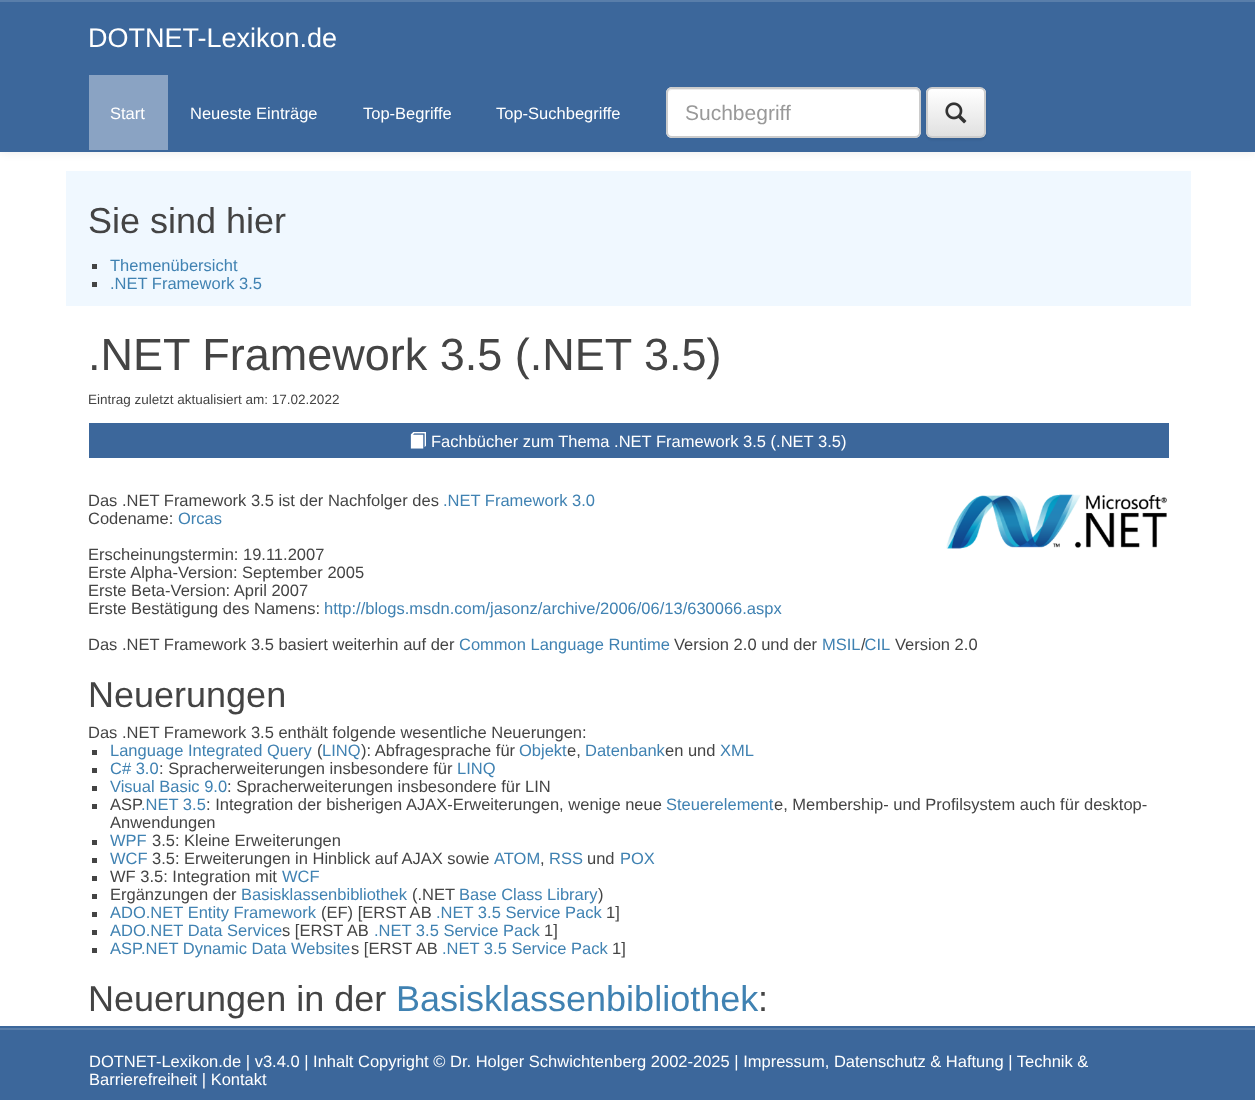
<!DOCTYPE html>
<meta charset="utf-8">
<style>body { margin: 0 } canvas { display: block }</style>
<canvas id="canvas" width="1255" height="1100"></canvas>
<img id="img1" src="img_01.png" hidden>
<img id="img2" src="img_02.png" hidden>
<img id="img3" src="img_03.png" hidden>
<script>
window.onload = function () {
	const canvas = document.getElementById("canvas");
	const ctx = canvas.getContext("2d");
	ctx.miterLimit = 4;
	ctx.fontKerning = "normal";
	function txt(s, x, y) {
		ctx.fillText(s, x, y);
	}
	function fill(x, y, w, h) {
		ctx.fillRect(x, y, w, h);
	}
	function round(x, y, w, h, r) {
		ctx.beginPath();
		ctx.roundRect(x, y, w, h, r);
		ctx.fill();
	}
	function img(id, x, y, w, h) {
		ctx.drawImage(document.getElementById(id), x, y, w, h);
	}
	let gradient;

	ctx.fillStyle = "#FFFFFF";
	fill(0, 0, 1255, 1100);
	ctx.fillStyle = "rgba(0, 0, 0, 0.07)";
	ctx.filter = "blur(4px)";
	ctx.beginPath();
	ctx.rect(0, 2, 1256, 151);
	ctx.fill();
	ctx.filter = "none";
	ctx.fillStyle = "#3C679B";
	fill(0, 2, 1255, 150);
	ctx.fillStyle = "#597EAA";
	fill(0, 0, 1255, 2);
	ctx.fillStyle = "#8AA3C3";
	fill(89, 75, 79, 75);
	ctx.fillStyle = "#FFFFFF";
	round(666, 87, 255, 51, 6);
	ctx.fillStyle = "#ECECEC";
	ctx.beginPath();
	ctx.moveTo(672, 90);
	ctx.lineTo(915, 90);
	ctx.bezierCurveTo(917, 90, 920, 92, 920, 94);
	ctx.bezierCurveTo(920, 91, 918, 89, 915, 89);
	ctx.lineTo(673, 89);
	ctx.bezierCurveTo(670, 89, 668, 91, 668, 94);
	ctx.bezierCurveTo(668, 92, 670, 90, 672, 90);
	ctx.closePath();
	ctx.fill();
	ctx.beginPath();
	ctx.roundRect(667, 88, 253, 49, 5);
	ctx.strokeStyle = "#CCCCCC";
	ctx.lineWidth = 2;
	ctx.stroke();
	ctx.fillStyle = "rgba(0, 0, 0, 0.07)";
	ctx.filter = "blur(1px)";
	ctx.beginPath();
	ctx.roundRect(926, 89, 60, 51, 6);
	ctx.fill();
	ctx.filter = "none";
	ctx.save();
	ctx.beginPath();
	ctx.roundRect(926, 87, 60, 51, 6);
	ctx.clip();
	gradient = ctx.createLinearGradient(956, 89, 956, 137);
	gradient.addColorStop(0, "#FFFFFF");
	gradient.addColorStop(1, "#E0E0E0");
	ctx.fillStyle = gradient;
	fill(926, 89, 60, 48);
	ctx.restore();
	ctx.beginPath();
	ctx.roundRect(927, 88, 58, 49, 5);
	ctx.stroke();
	img("img1", 945, 102, 22, 22);
	ctx.fillStyle = "#F0F8FF";
	fill(66, 171, 1125, 135);
	ctx.fillStyle = "#444444";
	fill(92, 264, 5, 5);
	fill(92, 282, 5, 5);
	ctx.fillStyle = "#3C679B";
	fill(89, 423, 1080, 35);
	img("img2", 410, 432, 16, 17);
	img("img3", 946, 494, 221, 55);
	ctx.fillStyle = "#444444";
	fill(92, 750, 5, 5);
	fill(92, 768, 5, 5);
	fill(92, 786, 5, 5);
	fill(92, 804, 5, 5);
	fill(92, 840, 5, 5);
	fill(92, 858, 5, 5);
	fill(92, 876, 5, 5);
	fill(92, 894, 5, 5);
	fill(92, 912, 5, 5);
	fill(92, 930, 5, 5);
	fill(92, 948, 5, 5);
	ctx.fillStyle = "#3C679B";
	fill(0, 1030, 1255, 70);
	ctx.fillStyle = "#597EAA";
	fill(0, 1028, 1255, 2);
	ctx.fillStyle = "#3C679B";
	fill(0, 1026, 1255, 2);
	ctx.font = "27px Liberation Sans";
	ctx.fillStyle = "#FFFFFF";
	txt("DOTNET-Lexikon.de", 88, 47);
	ctx.font = "16.5px Liberation Sans";
	txt("Start", 110, 119);
	txt("Neueste Einträge", 190, 119);
	txt("Top-Begriffe", 363, 119);
	txt("Top-Suchbegriffe", 496, 119);
	ctx.font = "21px Liberation Sans";
	ctx.fillStyle = "#999999";
	txt("Suchbegriff", 685, 120);
	ctx.font = "36px Liberation Sans";
	ctx.fillStyle = "#444444";
	txt("Sie sind hier", 88, 233);
	ctx.font = "16.5px Liberation Sans";
	ctx.fillStyle = "#4082B2";
	txt("Themenübersicht", 110, 271);
	txt(".NET Framework 3.5", 110, 289);
	ctx.font = "45px Liberation Sans";
	ctx.fillStyle = "#444444";
	txt(".NET Framework 3.5 (.NET 3.5)", 88, 370);
	ctx.font = "13.5px Liberation Sans";
	txt("Eintrag zuletzt aktualisiert am: 17.02.2022", 88, 404);
	ctx.font = "16.5px Liberation Sans";
	ctx.fillStyle = "#FFFFFF";
	txt("Fachbücher zum Thema .NET Framework 3.5 (.NET 3.5)", 431, 447);
	ctx.fillStyle = "#444444";
	txt("Das .NET Framework 3.5 ist der Nachfolger des", 88, 506);
	ctx.fillStyle = "#4082B2";
	txt(".NET Framework 3.0", 443, 506);
	ctx.fillStyle = "#444444";
	txt("Codename:", 88, 524);
	ctx.fillStyle = "#4082B2";
	txt("Orcas", 178, 524);
	ctx.fillStyle = "#444444";
	txt("Erscheinungstermin: 19.11.2007", 88, 560);
	txt("Erste Alpha-Version: September 2005", 88, 578);
	txt("Erste Beta-Version: April 2007", 88, 596);
	txt("Erste Bestätigung des Namens:", 88, 614);
	ctx.fillStyle = "#4082B2";
	txt("http://blogs.msdn.com/jasonz/archive/2006/06/13/630066.aspx", 324, 614);
	ctx.fillStyle = "#444444";
	txt("Das .NET Framework 3.5 basiert weiterhin auf der", 88, 650);
	ctx.fillStyle = "#4082B2";
	txt("Common Language Runtime", 459, 650);
	ctx.fillStyle = "#444444";
	txt("Version 2.0 und der", 674, 650);
	ctx.fillStyle = "#4082B2";
	txt("MSIL CIL", 822, 650);
	ctx.fillStyle = "#444444";
	txt("/", 861, 650);
	txt("Version 2.0", 895, 650);
	ctx.font = "36px Liberation Sans";
	txt("Neuerungen", 88, 707);
	ctx.font = "16.5px Liberation Sans";
	txt("Das .NET Framework 3.5 enthält folgende wesentliche Neuerungen:", 88, 738);
	ctx.fillStyle = "#4082B2";
	txt("Language Integrated Query", 110, 756);
	ctx.fillStyle = "#444444";
	txt("(", 317, 756);
	ctx.fillStyle = "#4082B2";
	txt("LINQ", 322, 756);
	ctx.fillStyle = "#444444";
	txt("): Abfragesprache für", 361, 756);
	ctx.fillStyle = "#4082B2";
	txt("Objekt", 519, 756);
	ctx.fillStyle = "#444444";
	txt("e,", 567, 756);
	ctx.fillStyle = "#4082B2";
	txt("Datenbank", 585, 756);
	ctx.fillStyle = "#444444";
	txt("en und", 665, 756);
	ctx.fillStyle = "#4082B2";
	txt("XML", 720, 756);
	txt("C# 3.0", 110, 774);
	ctx.fillStyle = "#444444";
	txt(": Spracherweiterungen insbesondere für", 159, 774);
	ctx.fillStyle = "#4082B2";
	txt("LINQ", 457, 774);
	txt("Visual Basic 9.0", 110, 792);
	ctx.fillStyle = "#444444";
	txt(": Spracherweiterungen insbesondere für LIN", 227, 792);
	txt("ASP", 110, 810);
	ctx.fillStyle = "#4082B2";
	txt(".NET 3.5", 141, 810);
	ctx.fillStyle = "#444444";
	txt(": Integration der bisherigen AJAX-Erweiterungen, wenige neue", 206, 810);
	ctx.fillStyle = "#4082B2";
	txt("Steuerelement", 666, 810);
	ctx.fillStyle = "#444444";
	txt("e, Membership- und Profilsystem auch für desktop-", 774, 810);
	txt("Anwendungen", 110, 828);
	ctx.fillStyle = "#4082B2";
	txt("WPF", 110, 846);
	ctx.fillStyle = "#444444";
	txt("3.5: Kleine Erweiterungen", 152, 846);
	ctx.fillStyle = "#4082B2";
	txt("WCF", 110, 864);
	ctx.fillStyle = "#444444";
	txt("3.5: Erweiterungen in Hinblick auf AJAX sowie", 152, 864);
	ctx.fillStyle = "#4082B2";
	txt("ATOM", 494, 864);
	txt("RSS", 549, 864);
	ctx.fillStyle = "#444444";
	txt("und", 587, 864);
	ctx.fillStyle = "#4082B2";
	txt("POX", 620, 864);
	ctx.fillStyle = "#444444";
	txt(",", 540, 864);
	txt("WF 3.5: Integration mit", 110, 882);
	ctx.fillStyle = "#4082B2";
	txt("WCF", 282, 882);
	ctx.fillStyle = "#444444";
	txt("Ergänzungen der", 110, 900);
	ctx.fillStyle = "#4082B2";
	txt("Basisklassenbibliothek", 241, 900);
	ctx.fillStyle = "#444444";
	txt("(.NET", 412, 900);
	ctx.fillStyle = "#4082B2";
	txt("Base Class Library", 459, 900);
	ctx.fillStyle = "#444444";
	txt(")", 598, 900);
	ctx.fillStyle = "#4082B2";
	txt("ADO.NET Entity Framework", 110, 918);
	ctx.fillStyle = "#444444";
	txt("(EF) [ERST AB", 321, 918);
	ctx.fillStyle = "#4082B2";
	txt(".NET 3.5 Service Pack", 436, 918);
	ctx.fillStyle = "#444444";
	txt("1]", 606, 918);
	ctx.fillStyle = "#4082B2";
	txt("ADO.NET Data Service", 110, 936);
	ctx.fillStyle = "#444444";
	txt("s [ERST AB", 282, 936);
	ctx.fillStyle = "#4082B2";
	txt(".NET 3.5 Service Pack", 374, 936);
	ctx.fillStyle = "#444444";
	txt("1]", 544, 936);
	ctx.fillStyle = "#4082B2";
	txt("ASP.NET Dynamic Data Website", 110, 954);
	ctx.fillStyle = "#444444";
	txt("s [ERST AB", 351, 954);
	ctx.fillStyle = "#4082B2";
	txt(".NET 3.5 Service Pack", 442, 954);
	ctx.fillStyle = "#444444";
	txt("1]", 612, 954);
	ctx.font = "36px Liberation Sans";
	txt("Neuerungen in der", 88, 1011);
	ctx.fillStyle = "#4082B2";
	txt("Basisklassenbibliothek", 396, 1011);
	ctx.fillStyle = "#444444";
	txt(":", 758, 1011);
	ctx.font = "16.5px Liberation Sans";
	ctx.fillStyle = "#FFFFFF";
	txt("DOTNET-Lexikon.de | v3.4.0 | Inhalt Copyright © Dr. Holger Schwichtenberg 2002-2025 | Impressum, Datenschutz & Haftung | Technik &", 89, 1067);
	txt("Barrierefreiheit | Kontakt", 89, 1085);
};
</script>
